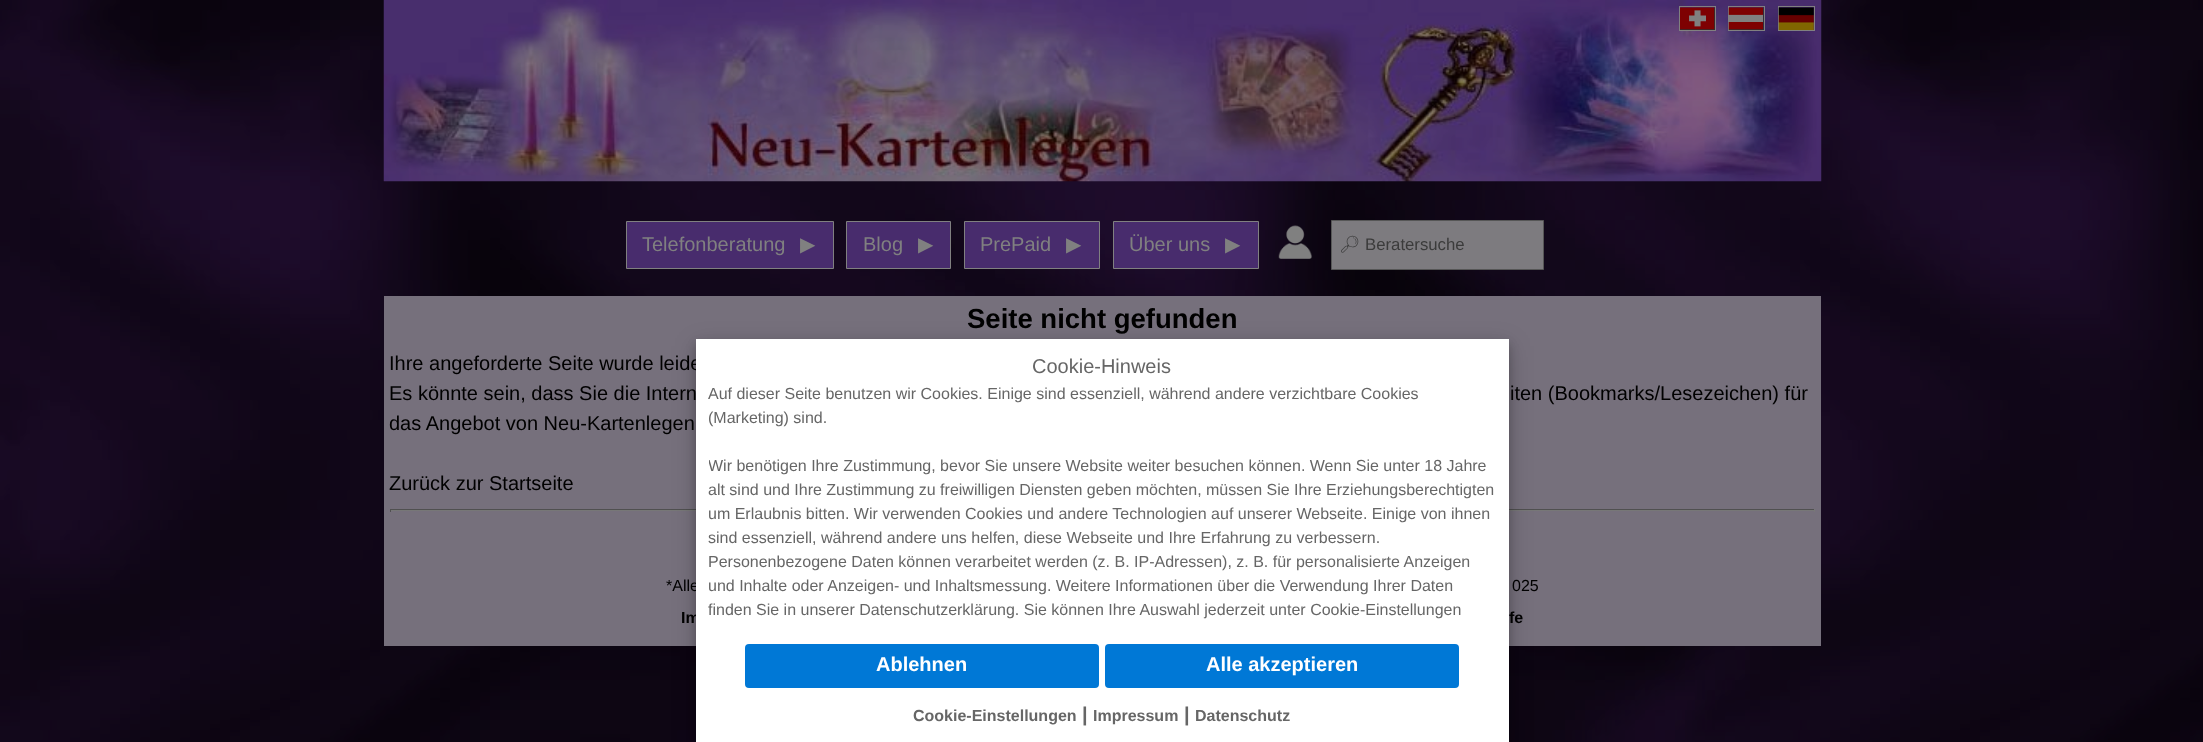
<!DOCTYPE html>
<meta charset="utf-8">
<style>body { margin: 0 } canvas { display: block }</style>
<canvas id="canvas" width="2203" height="742"></canvas>
<img id="img1" src="img_01.png" hidden>
<img id="img2" src="img_02.png" hidden>
<img id="img3" src="img_03.png" hidden>
<img id="img4" src="img_04.png" hidden>
<img id="img5" src="img_05.png" hidden>
<img id="img6" src="img_06.png" hidden>
<script>
window.onload = function () {
	const canvas = document.getElementById("canvas");
	const ctx = canvas.getContext("2d");
	ctx.miterLimit = 4;
	ctx.fontKerning = "normal";
	function txt(s, x, y) {
		ctx.fillText(s, x, y);
	}
	function fill(x, y, w, h) {
		ctx.fillRect(x, y, w, h);
	}
	function round(x, y, w, h, r) {
		ctx.beginPath();
		ctx.roundRect(x, y, w, h, r);
		ctx.fill();
	}
	function img(id, x, y, w, h) {
		ctx.drawImage(document.getElementById(id), x, y, w, h);
	}

	ctx.fillStyle = "#FFFFFF";
	fill(0, 0, 2203, 742);
	img("img1", 0, 0, 2203, 742);
	img("img2", 383, 0, 1439, 182);
	ctx.strokeStyle = "#808080";
	ctx.strokeRect(1679.5, 6.5, 36, 24);
	img("img3", 1680, 7, 35, 23);
	ctx.strokeRect(1728.5, 6.5, 36, 24);
	img("img4", 1728, 7, 36, 23);
	ctx.strokeRect(1778.5, 6.5, 36, 24);
	img("img5", 1778, 7, 36, 23);
	ctx.fillStyle = "#482C6D";
	ctx.beginPath();
	ctx.rect(626.5, 221.5, 207, 47);
	ctx.fill();
	ctx.stroke();
	ctx.beginPath();
	ctx.rect(846.5, 221.5, 104, 47);
	ctx.fill();
	ctx.stroke();
	ctx.beginPath();
	ctx.rect(964.5, 221.5, 135, 47);
	ctx.fill();
	ctx.stroke();
	ctx.beginPath();
	ctx.rect(1113.5, 221.5, 145, 47);
	ctx.fill();
	ctx.stroke();
	img("img6", 1278, 225, 35, 34);
	ctx.fillStyle = "#7D7B7F";
	ctx.beginPath();
	ctx.rect(1331.5, 220.5, 212, 49);
	ctx.fill();
	ctx.strokeStyle = "#565656";
	ctx.stroke();
	ctx.fillStyle = "#76707C";
	fill(384, 296, 1437, 350);
	ctx.fillStyle = "#505050";
	fill(390, 509, 1425, 1);
	ctx.fillStyle = "#777777";
	fill(1814, 509, 1, 3);
	fill(390, 510, 1425, 1);
	ctx.fillStyle = "#505050";
	fill(390, 509, 1, 3);
	ctx.fillStyle = "rgba(0, 0, 0, 0.19)";
	ctx.filter = "blur(12.5px)";
	ctx.beginPath();
	ctx.rect(696, 346, 813, 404);
	ctx.fill();
	ctx.filter = "none";
	ctx.fillStyle = "rgba(0, 0, 0, 0.2)";
	ctx.filter = "blur(5px)";
	ctx.beginPath();
	ctx.rect(696, 344, 813, 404);
	ctx.fill();
	ctx.filter = "none";
	ctx.font = "20px Liberation Sans";
	ctx.fillStyle = "#808080";
	txt("Telefonberatung", 642, 251);
	ctx.font = "20px DejaVu Sans";
	txt("▶", 800, 251);
	ctx.font = "20px Liberation Sans";
	txt("Blog", 863, 251);
	ctx.font = "20px DejaVu Sans";
	txt("▶", 918, 251);
	ctx.font = "20px Liberation Sans";
	txt("PrePaid", 980, 251);
	ctx.font = "20px DejaVu Sans";
	txt("▶", 1066, 251);
	ctx.font = "20px Liberation Sans";
	txt("Über uns", 1129, 251);
	ctx.font = "20px DejaVu Sans";
	txt("▶", 1225, 251);
	ctx.font = "16.75px Noto Emoji";
	ctx.fillStyle = "#3B3B3B";
	txt("🔎︎", 1339, 250);
	ctx.font = "16.75px Liberation Sans";
	txt("Beratersuche", 1365, 250);
	ctx.font = "bold 27.5px Liberation Sans";
	ctx.fillStyle = "#000000";
	txt("Seite nicht gefunden", 967, 328);
	ctx.font = "20px Liberation Sans";
	txt("Ihre angeforderte Seite wurde leide", 389, 370);
	txt("Es könnte sein, dass Sie die Intern", 389, 400);
	txt("iten (Bookmarks/Lesezeichen) für", 1510, 400);
	txt("das Angebot von Neu-Kartenlegen", 389, 430);
	txt("Zurück zur Startseite", 389, 490);
	ctx.font = "16px Liberation Sans";
	txt("*Alle", 666, 591);
	txt("025", 1512, 591);
	ctx.font = "bold 16px Liberation Sans";
	txt("Im", 681, 623);
	txt("fe", 1509, 623);
	ctx.fillStyle = "#FFFFFF";
	fill(696, 339, 813, 403);
	ctx.font = "16px Liberation Sans";
	ctx.fillStyle = "#666666";
	txt("finden Sie in unserer Datenschutzerklärung. Sie können Ihre Auswahl jederzeit unter Cookie-Einstellungen", 708, 615);
	txt("und Inhalte oder Anzeigen- und Inhaltsmessung. Weitere Informationen über die Verwendung Ihrer Daten", 708, 591);
	txt("Personenbezogene Daten können verarbeitet werden (z. B. IP-Adressen), z. B. für personalisierte Anzeigen", 708, 567);
	txt("sind essenziell, während andere uns helfen, diese Webseite und Ihre Erfahrung zu verbessern.", 708, 543);
	txt("um Erlaubnis bitten. Wir verwenden Cookies und andere Technologien auf unserer Webseite. Einige von ihnen", 708, 519);
	txt("alt sind und Ihre Zustimmung zu freiwilligen Diensten geben möchten, müssen Sie Ihre Erziehungsberechtigten", 708, 495);
	ctx.save();
	ctx.beginPath();
	ctx.rect(709, 381, 787, 250);
	ctx.clip();
	txt("Wir benötigen Ihre Zustimmung, bevor Sie unsere Website weiter besuchen können. Wenn Sie unter 18 Jahre", 708, 471);
	ctx.restore();
	txt("(Marketing) sind.", 708, 423);
	txt("Auf dieser Seite benutzen wir Cookies. Einige sind essenziell, während andere verzichtbare Cookies", 708, 399);
	ctx.font = "bold 16px Liberation Sans";
	txt("Datenschutz", 1195, 721);
	ctx.font = "bold 20px Liberation Sans";
	txt("|", 1184, 721);
	ctx.font = "bold 16px Liberation Sans";
	txt("Impressum", 1093, 721);
	ctx.font = "bold 20px Liberation Sans";
	txt("|", 1082, 721);
	ctx.font = "bold 16px Liberation Sans";
	txt("Cookie-Einstellungen", 913, 721);
	ctx.fillStyle = "#0078D6";
	round(1105, 644, 354, 44, 4);
	ctx.font = "bold 20px Liberation Sans";
	ctx.fillStyle = "#FFFFFF";
	txt("Alle akzeptieren", 1206, 671);
	ctx.fillStyle = "#0078D6";
	round(745, 644, 354, 44, 4);
	ctx.fillStyle = "#FFFFFF";
	txt("Ablehnen", 876, 671);
	ctx.font = "20px Liberation Sans";
	ctx.fillStyle = "#666666";
	txt("Cookie-Hinweis", 1032, 373);
};
</script>
